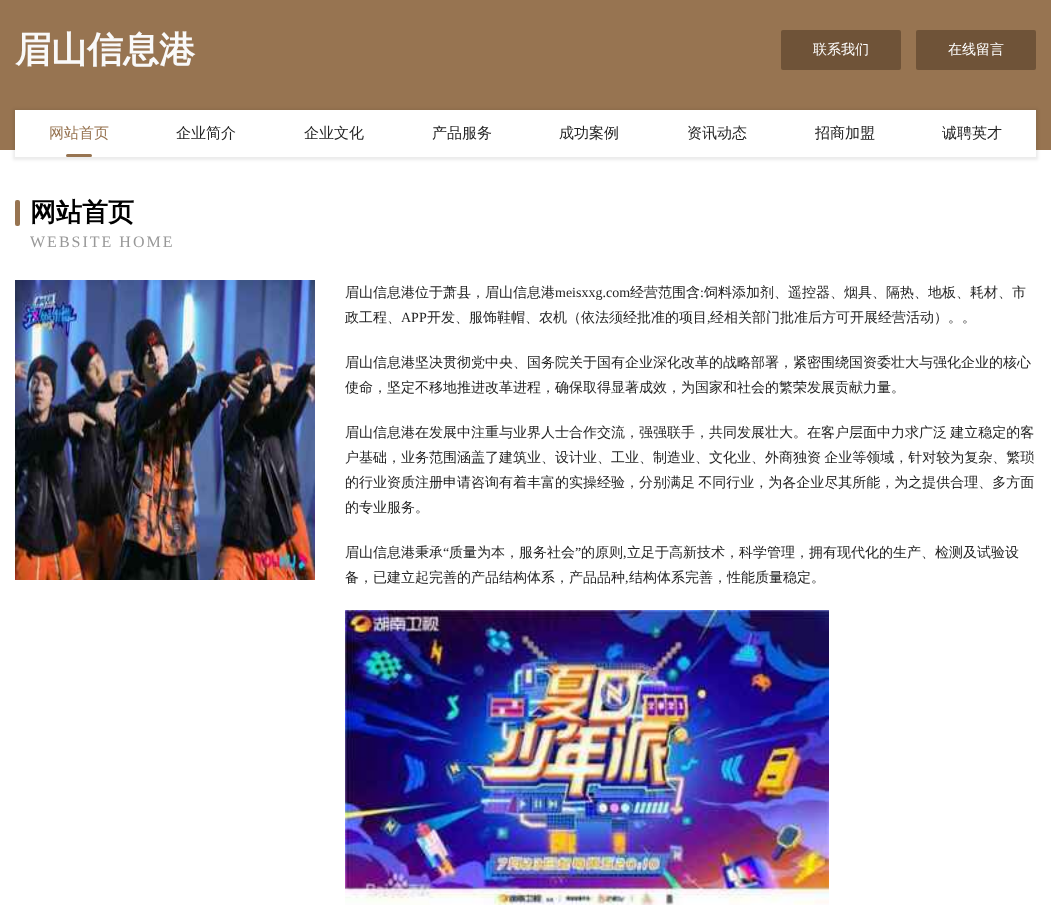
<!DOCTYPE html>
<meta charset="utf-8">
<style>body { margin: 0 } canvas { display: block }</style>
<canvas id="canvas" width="1051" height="905"></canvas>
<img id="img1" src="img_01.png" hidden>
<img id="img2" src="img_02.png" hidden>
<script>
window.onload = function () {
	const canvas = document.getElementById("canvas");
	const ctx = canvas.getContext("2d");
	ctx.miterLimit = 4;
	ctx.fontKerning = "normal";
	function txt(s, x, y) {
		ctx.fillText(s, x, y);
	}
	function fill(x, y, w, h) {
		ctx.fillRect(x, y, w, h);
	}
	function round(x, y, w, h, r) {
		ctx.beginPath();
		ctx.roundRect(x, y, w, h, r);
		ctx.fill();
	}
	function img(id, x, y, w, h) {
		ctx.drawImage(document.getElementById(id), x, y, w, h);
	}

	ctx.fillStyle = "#FFFFFF";
	fill(0, 0, 1051, 905);
	ctx.fillStyle = "#977451";
	fill(0, 0, 1051, 150);
	ctx.fillStyle = "#6F5338";
	round(781, 30, 120, 40, 2);
	round(916, 30, 120, 40, 2);
	ctx.fillStyle = "rgba(0, 0, 0, 0.08)";
	ctx.filter = "blur(1.5px)";
	ctx.beginPath();
	ctx.rect(13, 109, 1025, 51);
	ctx.fill();
	ctx.filter = "none";
	ctx.fillStyle = "#FFFFFF";
	fill(15, 110, 1021, 47);
	ctx.fillStyle = "#977451";
	round(66, 154, 26, 3, 1.5);
	round(15, 200, 5, 26, 2);
	img("img1", 15, 280, 300, 300);
	img("img2", 345, 610, 484, 295);
	ctx.font = "bold 36px WenQuanYi Zen Hei";
	ctx.fillStyle = "#F9F9F9";
	txt("眉山信息港", 15, 62);
	ctx.font = "500 14px WenQuanYi Zen Hei";
	ctx.fillStyle = "#FFFFFF";
	txt("联系我们", 813, 54);
	txt("在线留言", 948, 54);
	ctx.font = "500 15px WenQuanYi Zen Hei";
	ctx.fillStyle = "#977451";
	txt("网站首页", 49, 138);
	ctx.fillStyle = "#232323";
	txt("企业简介", 176, 138);
	txt("企业文化", 304, 138);
	txt("产品服务", 432, 138);
	txt("成功案例", 559, 138);
	txt("资讯动态", 687, 138);
	txt("招商加盟", 815, 138);
	txt("诚聘英才", 942, 138);
	ctx.font = "bold 26px WenQuanYi Zen Hei";
	ctx.fillStyle = "#000000";
	txt("网站首页", 30, 221);
	ctx.letterSpacing = "2px";
	ctx.font = "16px Liberation Serif";
	ctx.fillStyle = "#989898";
	txt("WEBSITE HOME", 30, 247);
	ctx.letterSpacing = "0px";
	ctx.font = "500 14px WenQuanYi Zen Hei";
	ctx.fillStyle = "#232323";
	txt("眉山信息港位于萧县，眉山信息港", 345, 297);
	ctx.font = "14px Liberation Serif";
	txt("meisxxg.com", 555, 297);
	ctx.font = "500 14px WenQuanYi Zen Hei";
	txt("经营范围含", 630, 297);
	ctx.font = "14px Liberation Serif";
	txt(":", 700, 297);
	ctx.font = "500 14px WenQuanYi Zen Hei";
	txt("饲料添加剂、遥控器、烟具、隔热、地板、耗材、市", 704, 297);
	txt("政工程、", 345, 322);
	ctx.font = "14px Liberation Serif";
	txt("APP", 401, 322);
	ctx.font = "500 14px WenQuanYi Zen Hei";
	txt("开发、服饰鞋帽、农机（依法须经批准的项目", 427, 322);
	txt("经相关部门批准后方可开展经营活动）。。", 710, 322);
	ctx.font = "14px Liberation Serif";
	txt(",", 707, 322);
	ctx.font = "500 14px WenQuanYi Zen Hei";
	txt("眉山信息港坚决贯彻党中央、国务院关于国有企业深化改革的战略部署，紧密围绕国资委壮大与强化企业的核心", 345, 367);
	txt("使命，坚定不移地推进改革进程，确保取得显著成效，为国家和社会的繁荣发展贡献力量。", 345, 392);
	ctx.wordSpacing = "-1px";
	txt("眉山信息港在发展中注重与业界人士合作交流，强强联手，共同发展壮大。在客户层面中力求广泛 建立稳定的客", 345, 437);
	txt("户基础，业务范围涵盖了建筑业、设计业、工业、制造业、文化业、外商独资 企业等领域，针对较为复杂、繁琐", 345, 462);
	txt("的行业资质注册申请咨询有着丰富的实操经验，分别满足 不同行业，为各企业尽其所能，为之提供合理、多方面", 345, 487);
	ctx.wordSpacing = "0px";
	txt("的专业服务。", 345, 512);
	txt("眉山信息港秉承", 345, 557);
	ctx.font = "14px Liberation Serif";
	txt("“", 443, 557);
	ctx.font = "500 14px WenQuanYi Zen Hei";
	txt("质量为本，服务社会", 449, 557);
	ctx.font = "14px Liberation Serif";
	txt("”", 575, 557);
	ctx.font = "500 14px WenQuanYi Zen Hei";
	txt("的原则", 581, 557);
	txt("立足于高新技术，科学管理，拥有现代化的生产、检测及试验设", 627, 557);
	ctx.font = "14px Liberation Serif";
	txt(",", 623, 557);
	ctx.font = "500 14px WenQuanYi Zen Hei";
	txt("备，已建立起完善的产品结构体系，产品品种", 345, 582);
	ctx.font = "14px Liberation Serif";
	txt(",", 625, 582);
	ctx.font = "500 14px WenQuanYi Zen Hei";
	txt("结构体系完善，性能质量稳定。", 629, 582);
};
</script>
